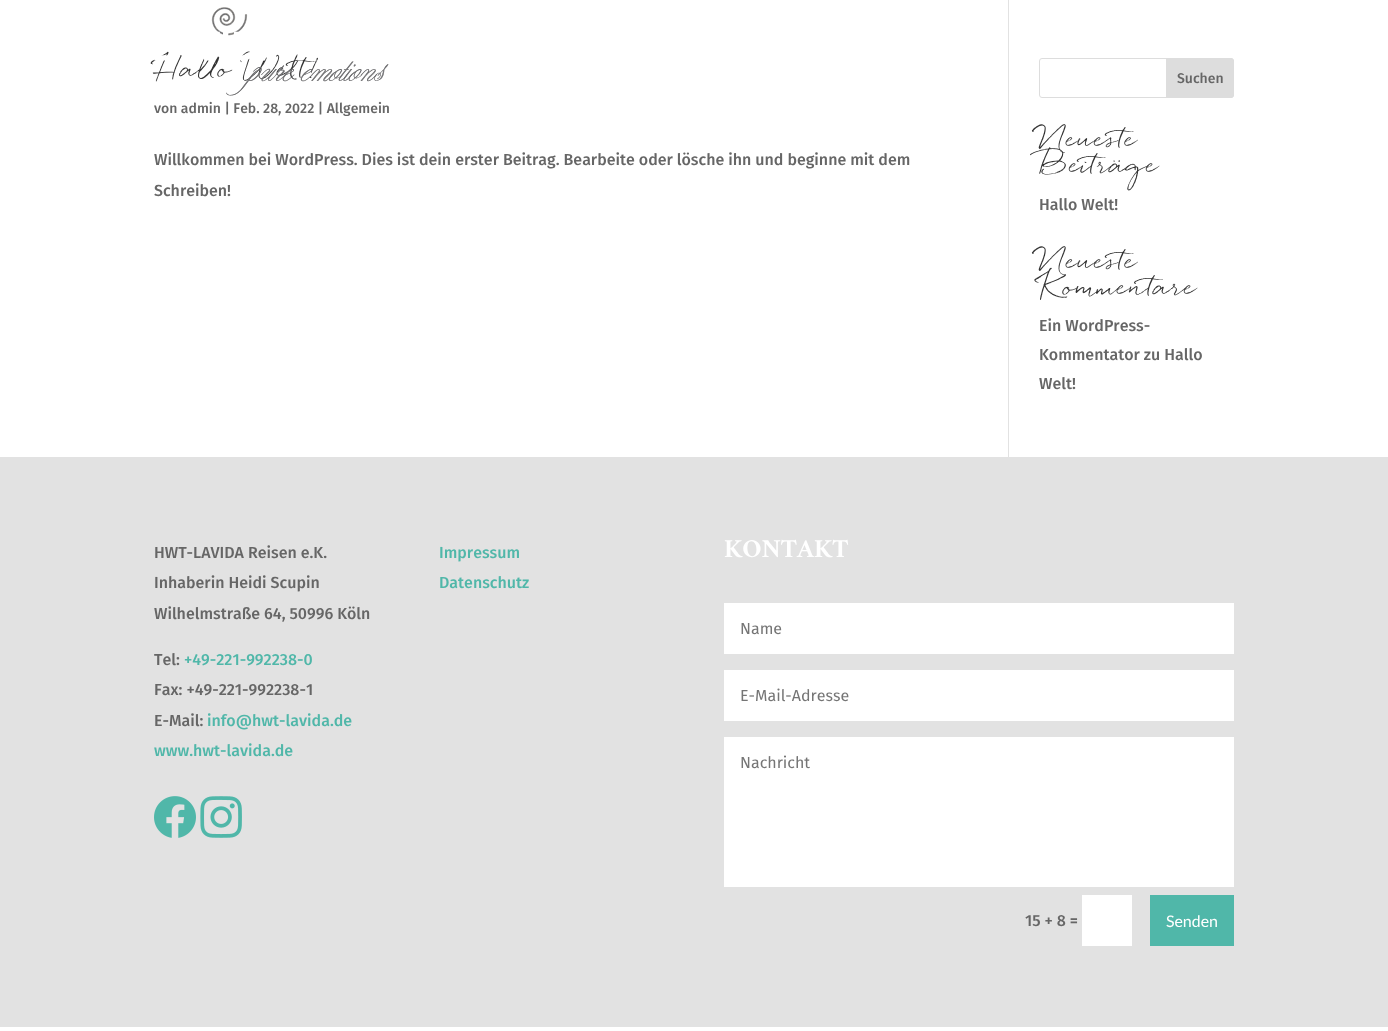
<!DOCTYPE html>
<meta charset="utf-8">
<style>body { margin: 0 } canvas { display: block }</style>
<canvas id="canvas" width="1388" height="1031"></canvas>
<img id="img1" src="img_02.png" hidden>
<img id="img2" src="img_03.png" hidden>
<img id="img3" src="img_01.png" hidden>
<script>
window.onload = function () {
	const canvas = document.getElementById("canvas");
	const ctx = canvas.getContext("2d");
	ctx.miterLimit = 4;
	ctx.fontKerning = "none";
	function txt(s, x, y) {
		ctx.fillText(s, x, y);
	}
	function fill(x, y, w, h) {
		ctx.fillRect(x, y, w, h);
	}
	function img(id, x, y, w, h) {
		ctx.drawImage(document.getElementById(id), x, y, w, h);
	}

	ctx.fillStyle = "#FFFFFF";
	fill(0, 0, 1388, 1031);
	ctx.fillStyle = "#E2E2E2";
	fill(1008, 0, 1, 457);
	ctx.beginPath();
	ctx.roundRect(1039.5, 58.5, 194, 39, 2.5);
	ctx.strokeStyle = "#DDDDDD";
	ctx.stroke();
	ctx.fillStyle = "#DDDDDD";
	ctx.beginPath();
	ctx.roundRect(1166.5, 58.5, 67, 39, [0, 2.5, 2.5, 0]);
	ctx.fill();
	ctx.stroke();
	ctx.fillStyle = "#E2E2E2";
	fill(0, 457, 1388, 570);
	img("img1", 154, 796, 42, 42);
	img("img2", 200, 796, 42, 42);
	ctx.fillStyle = "#FFFFFF";
	fill(724, 603, 510, 51);
	fill(724, 670, 510, 51);
	fill(724, 737, 510, 150);
	fill(1082, 895, 50, 51);
	ctx.fillStyle = "#50B7A9";
	fill(1150, 895, 84, 51);
	ctx.font = "26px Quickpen";
	ctx.fillStyle = "#333333";
	txt("Hallo Welt!", 154, 77);
	img("img3", 154, 7, 235, 89);
	ctx.font = "500 14px Fira Sans";
	ctx.fillStyle = "#666666";
	txt("von admin | Feb. 28, 2022 | Allgemein", 154, 113);
	ctx.font = "500 16px Fira Sans";
	txt("Willkommen bei WordPress. Dies ist dein erster Beitrag. Bearbeite oder lösche ihn und beginne mit dem", 154, 165);
	txt("Schreiben!", 154, 196);
	ctx.font = "500 14px Fira Sans";
	txt("Suchen", 1177, 83);
	ctx.font = "26px Quickpen";
	ctx.fillStyle = "#333333";
	txt("Neueste", 1039, 147);
	txt("Beiträge", 1039, 173);
	ctx.font = "500 16px Fira Sans";
	ctx.fillStyle = "#666666";
	txt("Hallo Welt!", 1039, 210);
	ctx.font = "26px Quickpen";
	ctx.fillStyle = "#333333";
	txt("Neueste", 1039, 269);
	txt("Kommentare", 1039, 295);
	ctx.font = "500 16px Fira Sans";
	ctx.fillStyle = "#666666";
	txt("Ein WordPress-", 1039, 331);
	txt("Kommentator zu Hallo", 1039, 360);
	txt("Welt!", 1039, 389);
	txt("HWT-LAVIDA Reisen e.K.", 154, 558);
	txt("Inhaberin Heidi Scupin", 154, 588);
	txt("Wilhelmstraße 64, 50996 Köln", 154, 619);
	txt("Tel:", 154, 665);
	ctx.fillStyle = "#50B7A9";
	txt("+49-221-992238-0", 184, 665);
	ctx.fillStyle = "#666666";
	txt("Fax: +49-221-992238-1", 154, 695);
	txt("E-Mail:", 154, 726);
	ctx.fillStyle = "#50B7A9";
	txt("info@hwt-lavida.de", 207, 726);
	txt("www.hwt-lavida.de", 154, 756);
	txt("Impressum", 439, 558);
	txt("Datenschutz", 439, 588);
	ctx.font = "bold 26px Amiri";
	ctx.fillStyle = "#FFFFFF";
	txt("KONTAKT", 724, 557);
	ctx.font = "16px Fira Sans";
	ctx.fillStyle = "#757575";
	txt("Name", 740, 634);
	txt("E-Mail-Adresse", 740, 701);
	txt("Nachricht", 740, 768);
	ctx.font = "500 16px Fira Sans";
	ctx.fillStyle = "#666666";
	txt("15 + 8 =", 1025, 926);
	ctx.font = "16px Lato";
	ctx.fillStyle = "#FFFFFF";
	txt("Senden", 1166, 927);
};
</script>
